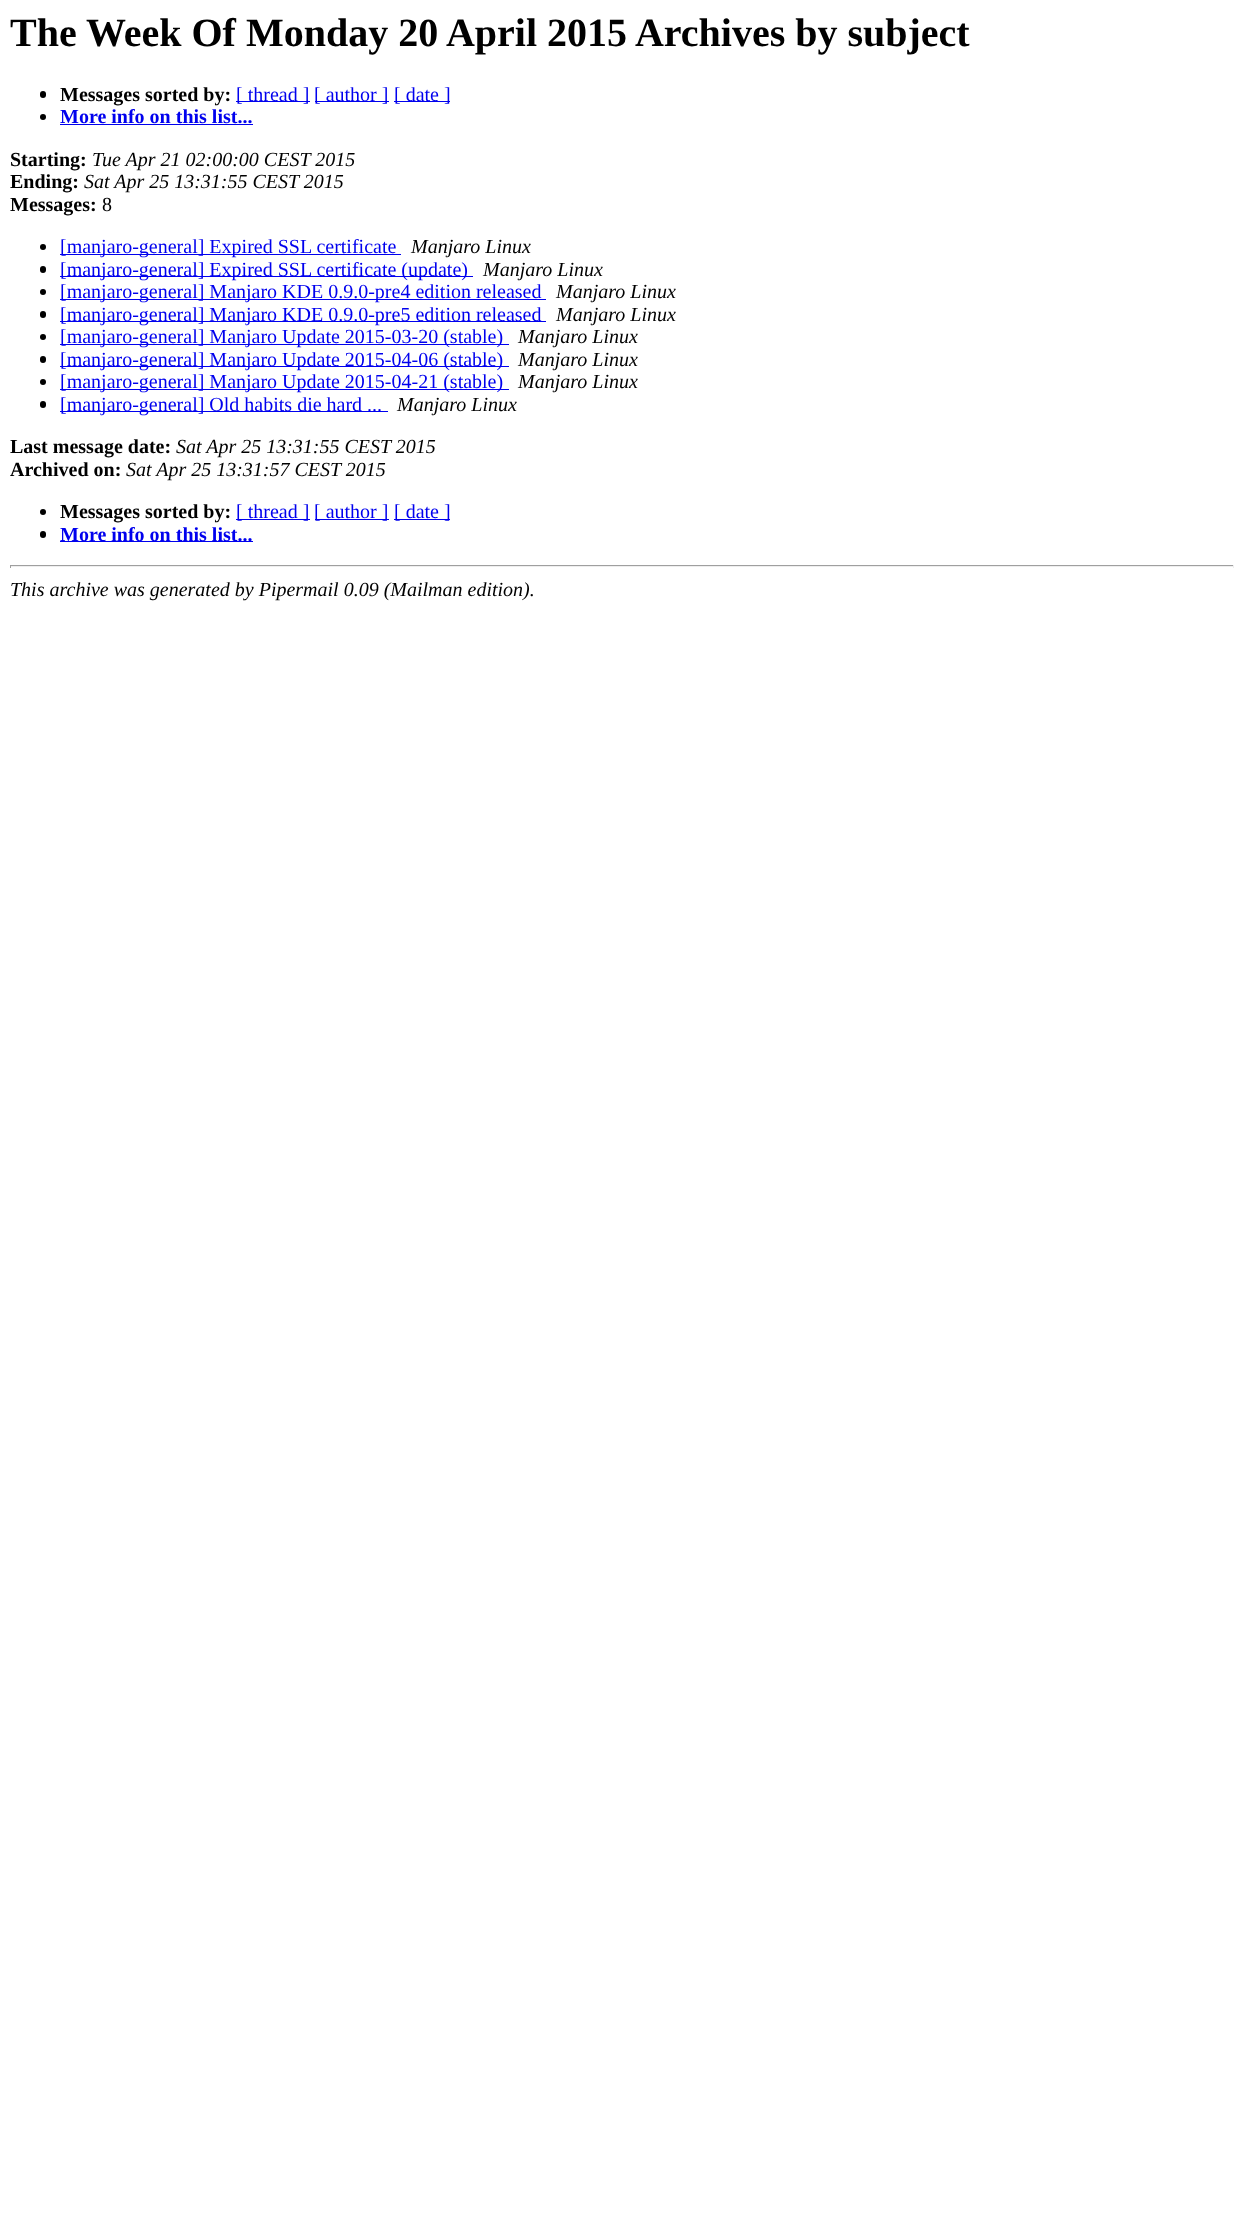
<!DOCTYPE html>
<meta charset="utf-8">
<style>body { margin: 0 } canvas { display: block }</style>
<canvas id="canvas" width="1243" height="2237"></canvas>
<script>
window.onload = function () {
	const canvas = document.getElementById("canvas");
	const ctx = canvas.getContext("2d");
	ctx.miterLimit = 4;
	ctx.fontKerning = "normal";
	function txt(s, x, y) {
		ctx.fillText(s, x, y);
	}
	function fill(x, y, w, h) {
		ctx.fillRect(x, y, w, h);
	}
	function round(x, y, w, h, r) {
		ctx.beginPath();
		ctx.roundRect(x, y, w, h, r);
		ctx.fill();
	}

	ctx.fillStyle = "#FFFFFF";
	fill(0, 0, 1243, 2237);
	ctx.fillStyle = "#000000";
	round(40, 91, 6, 7, 3);
	ctx.fillStyle = "#0000EE";
	fill(236, 101, 74, 1);
	fill(315, 101, 74, 1);
	fill(394, 101, 56, 1);
	ctx.fillStyle = "#000000";
	ctx.beginPath();
	ctx.arc(43, 117, 3, 0, Math.PI * 2);
	ctx.fill();
	ctx.fillStyle = "#0000EE";
	fill(60, 124, 193, 1);
	ctx.fillStyle = "#000000";
	ctx.beginPath();
	ctx.arc(43, 247, 3, 0, Math.PI * 2);
	ctx.fill();
	ctx.fillStyle = "#0000EE";
	fill(60, 254, 341, 1);
	ctx.fillStyle = "#000000";
	round(40, 266, 6, 7, 3);
	ctx.fillStyle = "#0000EE";
	fill(60, 276, 413, 1);
	ctx.fillStyle = "#000000";
	ctx.beginPath();
	ctx.arc(43, 292, 3, 0, Math.PI * 2);
	ctx.fill();
	ctx.fillStyle = "#0000EE";
	fill(60, 299, 486, 1);
	ctx.fillStyle = "#000000";
	round(40, 311, 6, 7, 3);
	ctx.fillStyle = "#0000EE";
	fill(60, 321, 486, 1);
	ctx.fillStyle = "#000000";
	ctx.beginPath();
	ctx.arc(43, 337, 3, 0, Math.PI * 2);
	ctx.fill();
	ctx.fillStyle = "#0000EE";
	fill(60, 344, 449, 1);
	ctx.fillStyle = "#000000";
	round(40, 356, 6, 7, 3);
	ctx.fillStyle = "#0000EE";
	fill(60, 366, 449, 1);
	ctx.fillStyle = "#000000";
	ctx.beginPath();
	ctx.arc(43, 382, 3, 0, Math.PI * 2);
	ctx.fill();
	ctx.fillStyle = "#0000EE";
	fill(60, 389, 449, 1);
	ctx.fillStyle = "#000000";
	round(40, 401, 6, 7, 3);
	ctx.fillStyle = "#0000EE";
	fill(60, 411, 328, 1);
	ctx.fillStyle = "#000000";
	ctx.beginPath();
	ctx.arc(43, 512, 3, 0, Math.PI * 2);
	ctx.fill();
	ctx.fillStyle = "#0000EE";
	fill(236, 519, 74, 1);
	fill(315, 519, 74, 1);
	fill(394, 519, 56, 1);
	ctx.fillStyle = "#000000";
	round(40, 531, 6, 7, 3);
	ctx.fillStyle = "#0000EE";
	fill(60, 541, 193, 1);
	ctx.fillStyle = "#9F9F9F";
	fill(10, 565, 1224, 1);
	ctx.fillStyle = "#EEEEEE";
	fill(1233, 565, 1, 3);
	fill(10, 566, 1224, 1);
	ctx.fillStyle = "#9F9F9F";
	fill(10, 565, 1, 3);
	ctx.font = "bold 40px Liberation Serif";
	ctx.fillStyle = "#000000";
	txt("The Week Of Monday 20 April 2015 Archives by subject", 10, 46);
	ctx.font = "bold 20px Liberation Serif";
	txt("Messages sorted by:", 60, 101);
	ctx.font = "20px Liberation Serif";
	ctx.fillStyle = "#0000EE";
	txt("[ thread ]", 236, 101);
	txt("[ author ]", 314, 101);
	txt("[ date ]", 394, 101);
	ctx.font = "bold 20px Liberation Serif";
	txt("More info on this list...", 60, 123);
	ctx.fillStyle = "#000000";
	txt("Starting:", 10, 166);
	ctx.font = "italic 20px Liberation Serif";
	txt("Tue Apr 21 02:00:00 CEST 2015", 92, 166);
	ctx.font = "bold 20px Liberation Serif";
	txt("Ending:", 10, 188);
	ctx.font = "italic 20px Liberation Serif";
	txt("Sat Apr 25 13:31:55 CEST 2015", 84, 188);
	ctx.font = "bold 20px Liberation Serif";
	txt("Messages:", 10, 211);
	ctx.font = "20px Liberation Serif";
	txt("8", 102, 211);
	ctx.fillStyle = "#0000EE";
	txt("[manjaro-general] Expired SSL certificate", 60, 253);
	ctx.font = "italic 20px Liberation Serif";
	ctx.fillStyle = "#000000";
	txt("Manjaro Linux", 411, 253);
	ctx.font = "20px Liberation Serif";
	ctx.fillStyle = "#0000EE";
	txt("[manjaro-general] Expired SSL certificate (update)", 60, 276);
	ctx.font = "italic 20px Liberation Serif";
	ctx.fillStyle = "#000000";
	txt("Manjaro Linux", 483, 276);
	ctx.font = "20px Liberation Serif";
	ctx.fillStyle = "#0000EE";
	txt("[manjaro-general] Manjaro KDE 0.9.0-pre4 edition released", 60, 298);
	ctx.font = "italic 20px Liberation Serif";
	ctx.fillStyle = "#000000";
	txt("Manjaro Linux", 556, 298);
	ctx.font = "20px Liberation Serif";
	ctx.fillStyle = "#0000EE";
	txt("[manjaro-general] Manjaro KDE 0.9.0-pre5 edition released", 60, 321);
	ctx.font = "italic 20px Liberation Serif";
	ctx.fillStyle = "#000000";
	txt("Manjaro Linux", 556, 321);
	ctx.font = "20px Liberation Serif";
	ctx.fillStyle = "#0000EE";
	txt("[manjaro-general] Manjaro Update 2015-03-20 (stable)", 60, 343);
	ctx.font = "italic 20px Liberation Serif";
	ctx.fillStyle = "#000000";
	txt("Manjaro Linux", 518, 343);
	ctx.font = "20px Liberation Serif";
	ctx.fillStyle = "#0000EE";
	txt("[manjaro-general] Manjaro Update 2015-04-06 (stable)", 60, 366);
	ctx.font = "italic 20px Liberation Serif";
	ctx.fillStyle = "#000000";
	txt("Manjaro Linux", 518, 366);
	ctx.font = "20px Liberation Serif";
	ctx.fillStyle = "#0000EE";
	txt("[manjaro-general] Manjaro Update 2015-04-21 (stable)", 60, 388);
	ctx.font = "italic 20px Liberation Serif";
	ctx.fillStyle = "#000000";
	txt("Manjaro Linux", 518, 388);
	ctx.font = "20px Liberation Serif";
	ctx.fillStyle = "#0000EE";
	txt("[manjaro-general] Old habits die hard ...", 60, 411);
	ctx.font = "italic 20px Liberation Serif";
	ctx.fillStyle = "#000000";
	txt("Manjaro Linux", 397, 411);
	ctx.font = "bold 20px Liberation Serif";
	txt("Last message date:", 10, 453);
	ctx.font = "italic 20px Liberation Serif";
	txt("Sat Apr 25 13:31:55 CEST 2015", 176, 453);
	ctx.font = "bold 20px Liberation Serif";
	txt("Archived on:", 10, 476);
	ctx.font = "italic 20px Liberation Serif";
	txt("Sat Apr 25 13:31:57 CEST 2015", 126, 476);
	ctx.font = "bold 20px Liberation Serif";
	txt("Messages sorted by:", 60, 518);
	ctx.font = "20px Liberation Serif";
	ctx.fillStyle = "#0000EE";
	txt("[ thread ]", 236, 518);
	txt("[ author ]", 314, 518);
	txt("[ date ]", 394, 518);
	ctx.font = "bold 20px Liberation Serif";
	txt("More info on this list...", 60, 541);
	ctx.font = "italic 20px Liberation Serif";
	ctx.fillStyle = "#000000";
	txt("This archive was generated by Pipermail 0.09 (Mailman edition).", 10, 596);
};
</script>
